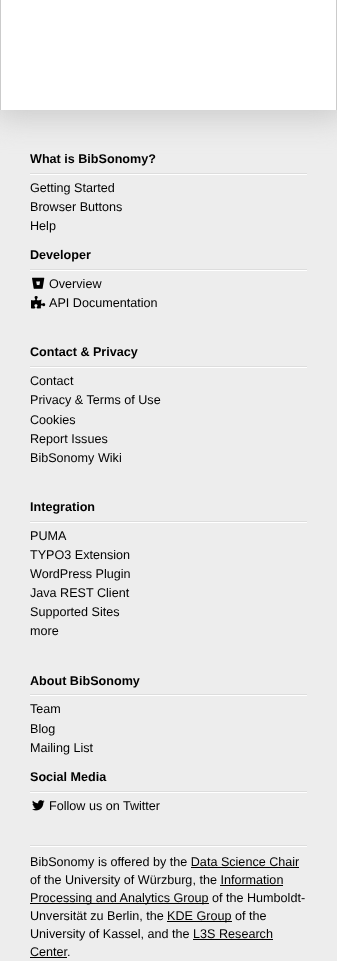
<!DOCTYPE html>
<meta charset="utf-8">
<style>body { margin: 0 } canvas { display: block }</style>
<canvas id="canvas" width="337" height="961"></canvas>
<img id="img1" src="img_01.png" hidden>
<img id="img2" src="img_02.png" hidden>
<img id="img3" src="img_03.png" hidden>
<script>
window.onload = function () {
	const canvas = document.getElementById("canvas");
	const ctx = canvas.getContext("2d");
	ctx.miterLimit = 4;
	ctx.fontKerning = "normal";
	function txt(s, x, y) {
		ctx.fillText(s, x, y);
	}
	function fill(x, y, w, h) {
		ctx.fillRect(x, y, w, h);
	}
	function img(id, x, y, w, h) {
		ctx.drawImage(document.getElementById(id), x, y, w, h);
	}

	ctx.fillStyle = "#EDEDED";
	fill(0, 0, 337, 961);
	ctx.fillStyle = "#CBCBCB";
	ctx.filter = "blur(15px)";
	ctx.beginPath();
	ctx.rect(-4, -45, 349, 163);
	ctx.fill();
	ctx.filter = "none";
	ctx.fillStyle = "#FFFFFF";
	fill(1, 0, 335, 110);
	ctx.fillStyle = "#CBCBCB";
	fill(336, 0, 1, 110);
	fill(0, 0, 1, 110);
	ctx.fillStyle = "#FFFFFF";
	fill(30, 174, 277, 1);
	ctx.fillStyle = "#DDDDDD";
	fill(30, 173, 277, 1);
	ctx.fillStyle = "#FFFFFF";
	fill(30, 270, 277, 1);
	ctx.fillStyle = "#DDDDDD";
	fill(30, 269, 277, 1);
	img("img1", 32, 277, 13, 12);
	img("img2", 31, 296, 15, 13);
	ctx.fillStyle = "#FFFFFF";
	fill(30, 367, 277, 1);
	ctx.fillStyle = "#DDDDDD";
	fill(30, 366, 277, 1);
	ctx.fillStyle = "#FFFFFF";
	fill(30, 522, 277, 1);
	ctx.fillStyle = "#DDDDDD";
	fill(30, 521, 277, 1);
	ctx.fillStyle = "#FFFFFF";
	fill(30, 695, 277, 1);
	ctx.fillStyle = "#DDDDDD";
	fill(30, 694, 277, 1);
	ctx.fillStyle = "#FFFFFF";
	fill(30, 792, 277, 1);
	ctx.fillStyle = "#DDDDDD";
	fill(30, 791, 277, 1);
	img("img3", 32, 800, 13, 11);
	ctx.fillStyle = "#FFFFFF";
	ctx.filter = "blur(0.5px)";
	ctx.beginPath();
	ctx.rect(30, 845, 277, 2);
	ctx.fill();
	ctx.filter = "none";
	ctx.fillStyle = "#DDDDDD";
	fill(30, 845, 277, 1);
	ctx.fillStyle = "#000000";
	fill(191, 867, 108, 1);
	fill(220, 885, 63, 1);
	fill(30, 903, 179, 1);
	fill(167, 921, 65, 1);
	fill(193, 939, 80, 1);
	fill(30, 957, 37, 1);
	ctx.font = "bold 12.6px Liberation Sans";
	txt("What is BibSonomy?", 30, 163);
	ctx.font = "12.6px Liberation Sans";
	txt("Getting Started", 30, 192);
	txt("Browser Buttons", 30, 211);
	txt("Help", 30, 230);
	ctx.font = "bold 12.6px Liberation Sans";
	txt("Developer", 30, 259);
	ctx.font = "12.6px Liberation Sans";
	txt("Overview", 49, 288);
	txt("API Documentation", 49, 307);
	ctx.font = "bold 12.6px Liberation Sans";
	txt("Contact & Privacy", 30, 356);
	ctx.font = "12.6px Liberation Sans";
	txt("Contact", 30, 385);
	txt("Privacy & Terms of Use", 30, 404);
	txt("Cookies", 30, 424);
	txt("Report Issues", 30, 443);
	txt("BibSonomy Wiki", 30, 462);
	ctx.font = "bold 12.6px Liberation Sans";
	txt("Integration", 30, 511);
	ctx.font = "12.6px Liberation Sans";
	txt("PUMA", 30, 540);
	txt("TYPO3 Extension", 30, 559);
	txt("WordPress Plugin", 30, 578);
	txt("Java REST Client", 30, 597);
	txt("Supported Sites", 30, 616);
	txt("more", 30, 635);
	ctx.font = "bold 12.6px Liberation Sans";
	txt("About BibSonomy", 30, 685);
	ctx.font = "12.6px Liberation Sans";
	txt("Team", 30, 713);
	txt("Blog", 30, 733);
	txt("Mailing List", 30, 752);
	ctx.font = "bold 12.6px Liberation Sans";
	txt("Social Media", 30, 781);
	ctx.font = "12.6px Liberation Sans";
	txt("Follow us on Twitter", 49, 810);
	txt("BibSonomy is offered by the Data Science Chair", 30, 866);
	txt("of the University of Würzburg, the Information", 30, 884);
	txt("Processing and Analytics Group of the Humboldt-", 30, 902);
	txt("Unversität zu Berlin, the", 30, 920);
	txt("KDE Group of the", 167, 920);
	txt("University of Kassel, and the L3S Research", 30, 938);
	txt("Center", 30, 956);
	txt(".", 67, 956);
};
</script>
